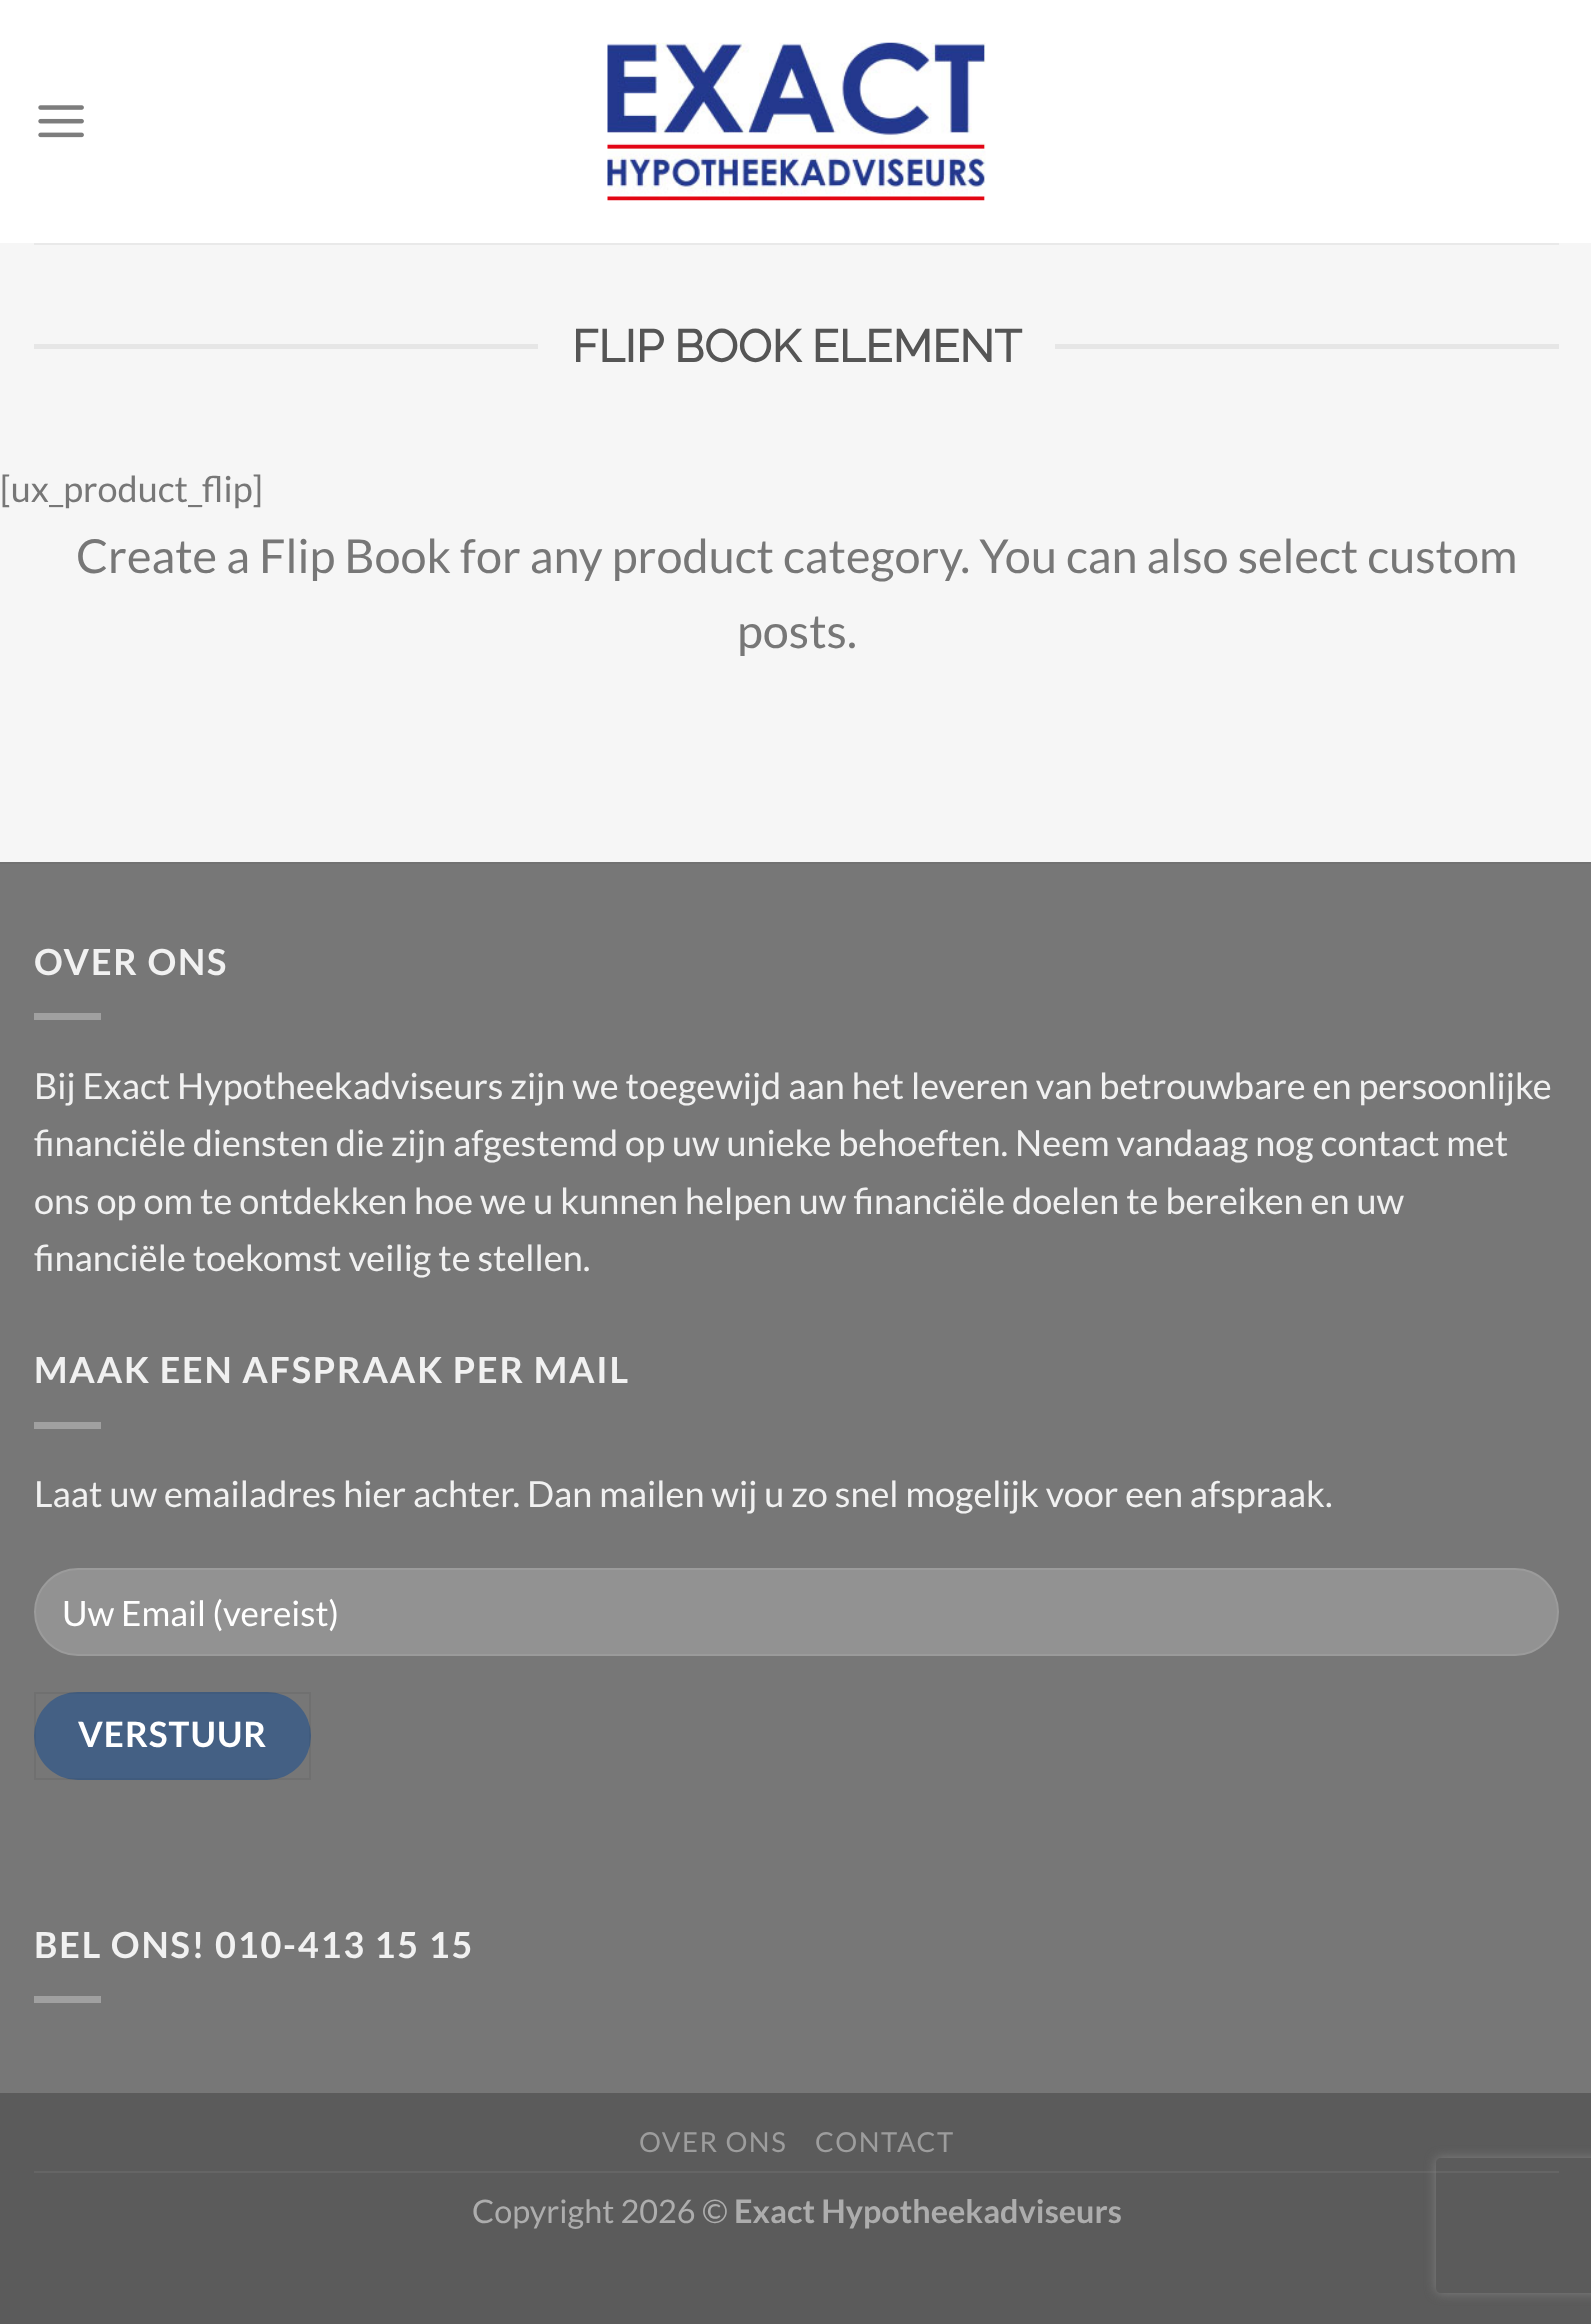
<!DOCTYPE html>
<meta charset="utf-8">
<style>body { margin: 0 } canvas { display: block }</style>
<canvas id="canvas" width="1591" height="2324"></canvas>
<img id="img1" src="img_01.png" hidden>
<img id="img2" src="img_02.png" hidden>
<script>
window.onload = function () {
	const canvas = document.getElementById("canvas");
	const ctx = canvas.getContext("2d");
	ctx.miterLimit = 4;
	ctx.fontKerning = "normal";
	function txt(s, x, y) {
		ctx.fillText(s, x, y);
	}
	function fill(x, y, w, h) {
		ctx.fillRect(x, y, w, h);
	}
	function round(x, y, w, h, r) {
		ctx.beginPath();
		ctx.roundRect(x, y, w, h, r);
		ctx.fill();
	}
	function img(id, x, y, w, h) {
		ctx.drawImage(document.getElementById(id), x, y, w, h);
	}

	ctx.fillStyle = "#5B5B5B";
	fill(0, 0, 1591, 2324);
	ctx.fillStyle = "#FFFFFF";
	fill(0, 0, 1591, 243);
	img("img1", 38, 105, 46, 33);
	img("img2", 607, 42, 379, 159);
	ctx.fillStyle = "#F6F6F6";
	fill(0, 243, 1591, 619);
	ctx.fillStyle = "#E9E9E9";
	fill(34, 243, 1525, 2);
	ctx.fillStyle = "#E6E6E6";
	fill(34, 344, 504, 5);
	fill(1055, 344, 504, 5);
	ctx.fillStyle = "#777777";
	fill(0, 864, 1591, 1229);
	ctx.fillStyle = "#717171";
	fill(0, 862, 1591, 2);
	ctx.fillStyle = "#A0A0A0";
	fill(34, 1013, 67, 7);
	fill(34, 1422, 67, 7);
	ctx.fillStyle = "#929292";
	round(34, 1568, 1525, 88, 44);
	ctx.beginPath();
	ctx.roundRect(35, 1569, 1523, 86, 43);
	ctx.strokeStyle = "rgba(255, 255, 255, 0.09)";
	ctx.lineWidth = 2;
	ctx.stroke();
	ctx.fillStyle = "#446084";
	round(34, 1692, 277, 88, 44);
	ctx.strokeStyle = "rgba(0, 0, 0, 0.05)";
	ctx.strokeRect(35, 1693, 275, 86);
	ctx.fillStyle = "#A0A0A0";
	fill(34, 1996, 67, 7);
	ctx.fillStyle = "#656565";
	fill(34, 2171, 1525, 2);
	ctx.save();
	ctx.beginPath();
	ctx.moveTo(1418, 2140);
	ctx.lineTo(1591, 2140);
	ctx.lineTo(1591, 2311);
	ctx.lineTo(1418, 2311);
	ctx.closePath();
	ctx.moveTo(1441, 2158);
	ctx.lineTo(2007, 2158);
	ctx.bezierCurveTo(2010, 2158, 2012, 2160, 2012, 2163);
	ctx.lineTo(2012, 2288);
	ctx.bezierCurveTo(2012, 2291, 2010, 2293, 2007, 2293);
	ctx.lineTo(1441, 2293);
	ctx.bezierCurveTo(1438, 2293, 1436, 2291, 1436, 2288);
	ctx.lineTo(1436, 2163);
	ctx.bezierCurveTo(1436, 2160, 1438, 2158, 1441, 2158);
	ctx.closePath();
	ctx.clip("evenodd");
	ctx.fillStyle = "#808080";
	ctx.filter = "blur(5.5px)";
	ctx.beginPath();
	ctx.roundRect(1436, 2158, 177, 135, 5);
	ctx.fill();
	ctx.filter = "none";
	ctx.restore();
	ctx.font = "bold 45px Raleway";
	ctx.fillStyle = "#555555";
	txt("FLIP BOOK ELEMENT", 572, 362);
	ctx.font = "36px Lato";
	ctx.fillStyle = "#777777";
	txt("[ux_product_flip]", 0, 502);
	ctx.font = "46.8px Lato";
	txt("Create a Flip Book for any product category. You can also select custom", 76, 573);
	txt("posts.", 737, 648);
	ctx.letterSpacing = "1.8px";
	ctx.font = "bold 36px Lato";
	ctx.fillStyle = "#F1F1F1";
	txt("OVER ONS", 34, 975);
	ctx.letterSpacing = "0px";
	ctx.font = "36px Lato";
	txt("Bij Exact Hypotheekadviseurs zijn we toegewijd aan het leveren van betrouwbare en persoonlijke", 34, 1099);
	txt("financiële diensten die zijn afgestemd op uw unieke behoeften. Neem vandaag nog contact met", 34, 1156);
	txt("ons op om te ontdekken hoe we u kunnen helpen uw financiële doelen te bereiken en uw", 34, 1214);
	txt("financiële toekomst veilig te stellen.", 34, 1271);
	ctx.letterSpacing = "1.8px";
	ctx.font = "bold 36px Lato";
	txt("MAAK EEN AFSPRAAK PER MAIL", 34, 1383);
	ctx.letterSpacing = "0px";
	ctx.font = "36px Lato";
	txt("Laat uw emailadres hier achter. Dan mailen wij u zo snel mogelijk voor een afspraak.", 34, 1507);
	ctx.font = "35px Lato";
	ctx.fillStyle = "#FFFFFF";
	txt("Uw Email (vereist)", 62, 1626);
	ctx.letterSpacing = "1px";
	ctx.font = "bold 35px Lato";
	txt("VERSTUUR", 78, 1747);
	ctx.letterSpacing = "1.8px";
	ctx.font = "bold 36px Lato";
	ctx.fillStyle = "#F1F1F1";
	txt("BEL ONS! 010-413 15 15", 34, 1958);
	ctx.letterSpacing = "1.5px";
	ctx.font = "27.5px Lato";
	ctx.fillStyle = "#9D9D9D";
	txt("OVER ONS", 639, 2152);
	txt("CONTACT", 815, 2152);
	ctx.letterSpacing = "0px";
	ctx.font = "32.4px Lato";
	ctx.fillStyle = "#ADADAD";
	txt("Copyright 2026 ©", 472, 2223);
	ctx.font = "bold 32.4px Lato";
	txt("Exact Hypotheekadviseurs", 734, 2223);
};
</script>
